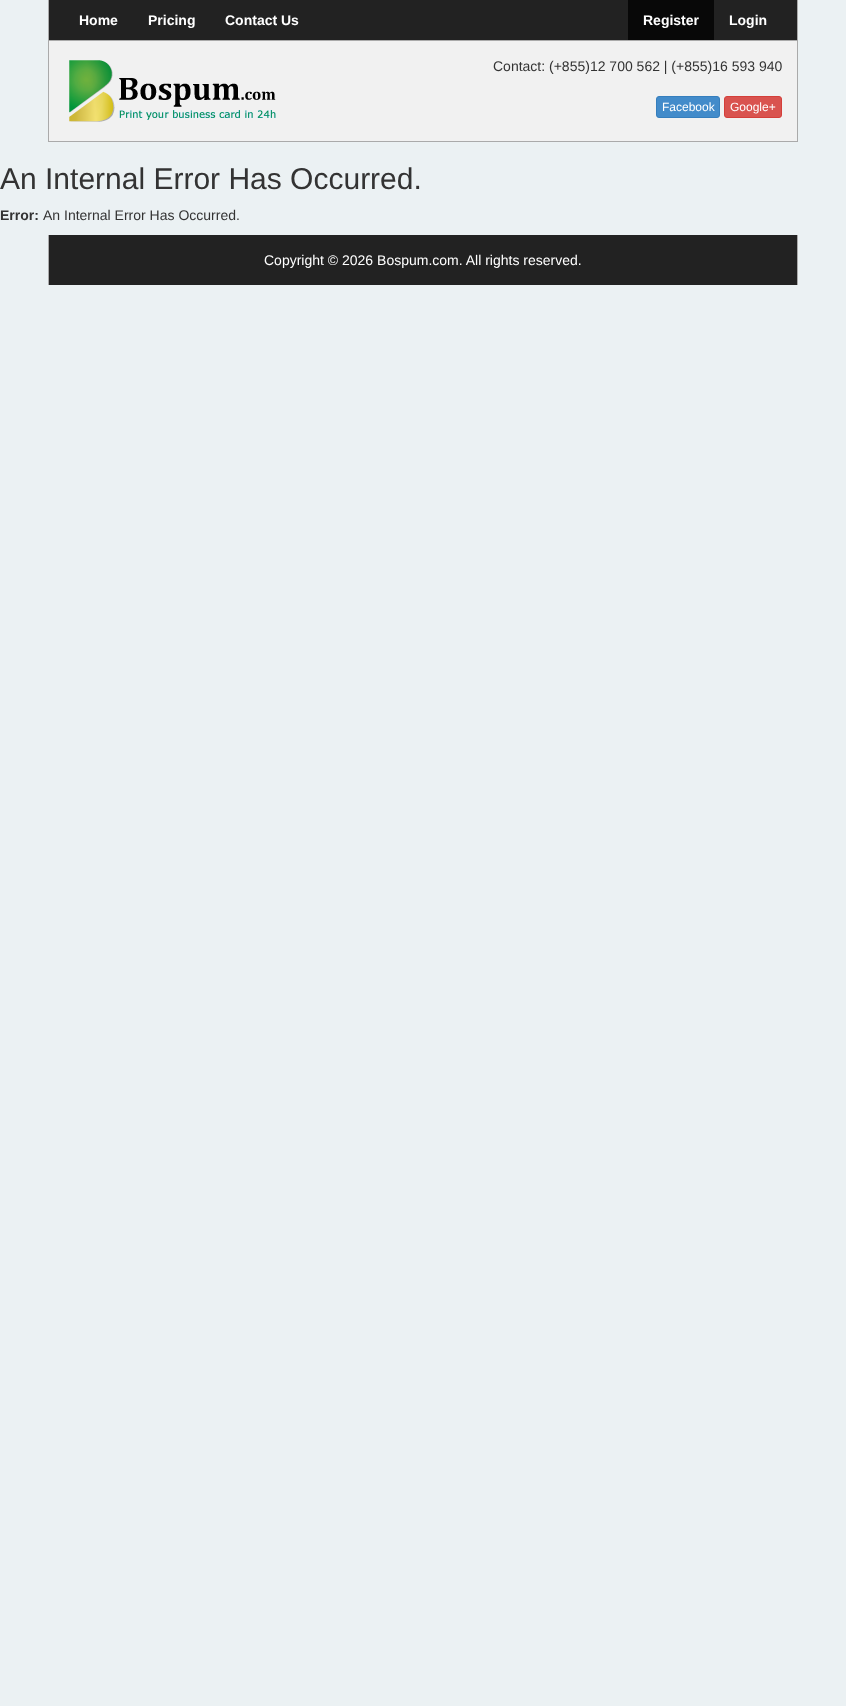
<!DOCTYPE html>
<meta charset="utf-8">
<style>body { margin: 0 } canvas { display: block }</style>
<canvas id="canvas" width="846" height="1706"></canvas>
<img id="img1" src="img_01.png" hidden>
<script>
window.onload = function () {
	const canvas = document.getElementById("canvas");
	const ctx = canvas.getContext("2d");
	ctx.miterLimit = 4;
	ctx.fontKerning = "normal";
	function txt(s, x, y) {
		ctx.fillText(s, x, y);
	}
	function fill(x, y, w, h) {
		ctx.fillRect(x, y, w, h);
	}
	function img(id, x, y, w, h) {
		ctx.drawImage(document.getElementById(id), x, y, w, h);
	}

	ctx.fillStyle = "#EBF1F3";
	fill(0, 0, 846, 1706);
	ctx.fillStyle = "#222222";
	fill(49, 0, 748, 40);
	ctx.fillStyle = "#AAAAAA";
	fill(797, 0, 1, 142);
	fill(48, 40, 750, 1);
	fill(48, 0, 1, 41);
	ctx.fillStyle = "#080808";
	fill(628, 0, 86, 40);
	ctx.fillStyle = "#F1F1F1";
	fill(49, 41, 748, 100);
	ctx.fillStyle = "#AAAAAA";
	fill(48, 141, 750, 1);
	fill(48, 41, 1, 101);
	img("img1", 69, 60, 207, 62);
	ctx.fillStyle = "#428BCA";
	ctx.beginPath();
	ctx.roundRect(656.5, 96.5, 63, 21, 2.5);
	ctx.fill();
	ctx.strokeStyle = "#357EBD";
	ctx.stroke();
	ctx.fillStyle = "#D9534F";
	ctx.beginPath();
	ctx.roundRect(724.5, 96.5, 57, 21, 2.5);
	ctx.fill();
	ctx.strokeStyle = "#D43F3A";
	ctx.stroke();
	ctx.fillStyle = "#222222";
	fill(49, 235, 748, 50);
	ctx.fillStyle = "#AAAAAA";
	fill(797, 235, 1, 50);
	fill(48, 235, 1, 50);
	ctx.font = "bold 14px Liberation Sans";
	ctx.fillStyle = "#FFFFFF";
	txt("Home", 79, 25);
	txt("Pricing", 148, 25);
	txt("Contact Us", 225, 25);
	txt("Register", 643, 25);
	txt("Login", 729, 25);
	ctx.font = "14px Liberation Sans";
	ctx.fillStyle = "#333333";
	txt("Contact: (+855)12 700 562 | (+855)16 593 940", 493, 71);
	ctx.font = "12px Liberation Sans";
	ctx.fillStyle = "#FFFFFF";
	txt("Facebook", 662, 111);
	txt("Google+", 730, 111);
	ctx.font = "30px Liberation Sans";
	ctx.fillStyle = "#333333";
	txt("An Internal Error Has Occurred.", 0, 189);
	ctx.font = "bold 14px Liberation Sans";
	txt("Error:", 0, 220);
	ctx.font = "14px Liberation Sans";
	txt("An Internal Error Has Occurred.", 43, 220);
	ctx.fillStyle = "#FFFFFF";
	txt("Copyright © 2026 Bospum.com. All rights reserved.", 264, 265);
};
</script>
